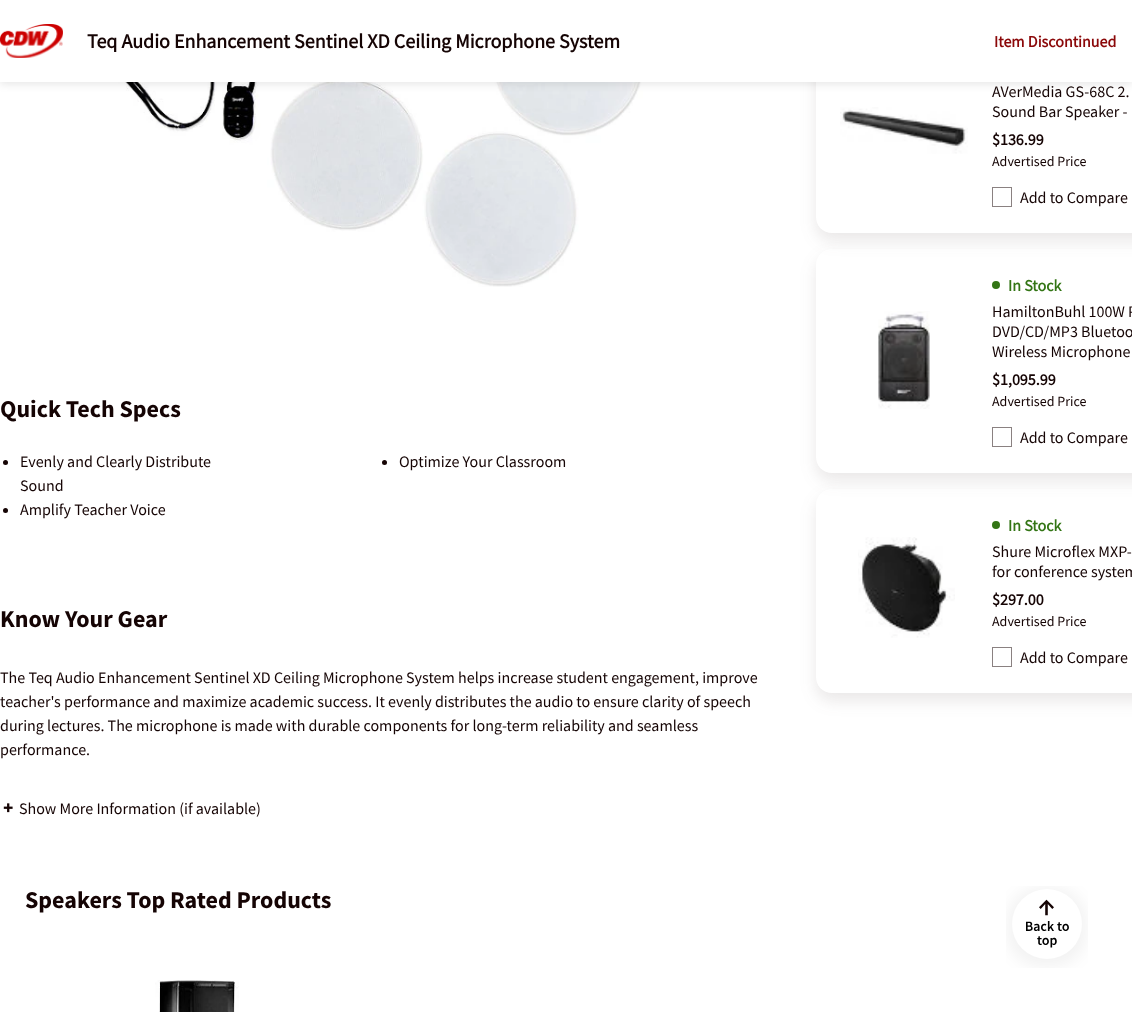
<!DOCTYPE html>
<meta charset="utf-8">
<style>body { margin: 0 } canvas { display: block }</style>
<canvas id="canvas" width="1132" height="1012"></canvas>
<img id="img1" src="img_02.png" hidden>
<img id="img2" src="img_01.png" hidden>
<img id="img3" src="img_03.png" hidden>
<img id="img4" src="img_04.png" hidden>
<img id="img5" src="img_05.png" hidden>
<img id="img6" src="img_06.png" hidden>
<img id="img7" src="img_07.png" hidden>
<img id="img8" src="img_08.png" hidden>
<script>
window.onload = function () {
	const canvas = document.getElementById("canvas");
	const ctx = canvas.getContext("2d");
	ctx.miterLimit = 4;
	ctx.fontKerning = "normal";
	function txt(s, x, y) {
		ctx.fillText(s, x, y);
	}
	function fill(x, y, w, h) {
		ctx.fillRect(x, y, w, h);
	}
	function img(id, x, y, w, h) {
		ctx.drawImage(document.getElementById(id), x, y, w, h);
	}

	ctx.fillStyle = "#FFFFFF";
	fill(0, 0, 1132, 1012);
	img("img1", 111, 82, 532, 205);
	ctx.fillStyle = "rgba(0, 0, 0, 0.1)";
	ctx.filter = "blur(4px)";
	ctx.beginPath();
	ctx.rect(0, 2, 1132, 82);
	ctx.fill();
	ctx.filter = "none";
	ctx.save();
	ctx.beginPath();
	ctx.moveTo(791, 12);
	ctx.lineTo(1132, 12);
	ctx.lineTo(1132, 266);
	ctx.lineTo(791, 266);
	ctx.closePath();
	ctx.moveTo(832, 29);
	ctx.lineTo(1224, 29);
	ctx.bezierCurveTo(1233, 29, 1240, 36, 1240, 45);
	ctx.lineTo(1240, 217);
	ctx.bezierCurveTo(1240, 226, 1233, 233, 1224, 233);
	ctx.lineTo(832, 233);
	ctx.bezierCurveTo(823, 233, 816, 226, 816, 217);
	ctx.lineTo(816, 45);
	ctx.bezierCurveTo(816, 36, 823, 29, 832, 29);
	ctx.closePath();
	ctx.clip("evenodd");
	ctx.fillStyle = "rgba(80, 67, 67, 0.12)";
	ctx.filter = "blur(8px)";
	ctx.beginPath();
	ctx.roundRect(816, 37, 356, 204, 16);
	ctx.fill();
	ctx.filter = "none";
	ctx.restore();
	ctx.fillStyle = "#FFFFFF";
	fill(0, 0, 1132, 82);
	img("img2", 0, 24, 63, 34);
	ctx.fillStyle = "#150404";
	ctx.beginPath();
	ctx.arc(5.5, 462.5, 2.5, 0, Math.PI * 2);
	ctx.fill();
	ctx.beginPath();
	ctx.arc(5.5, 510.5, 2.5, 0, Math.PI * 2);
	ctx.fill();
	ctx.beginPath();
	ctx.arc(384.5, 462.5, 2.5, 0, Math.PI * 2);
	ctx.fill();
	img("img3", 840, 107, 128, 47);
	ctx.strokeStyle = "#8A8181";
	ctx.strokeRect(992.5, 187.5, 19, 19);
	ctx.save();
	ctx.beginPath();
	ctx.moveTo(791, 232);
	ctx.lineTo(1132, 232);
	ctx.lineTo(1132, 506);
	ctx.lineTo(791, 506);
	ctx.closePath();
	ctx.moveTo(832, 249);
	ctx.lineTo(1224, 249);
	ctx.bezierCurveTo(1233, 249, 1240, 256, 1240, 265);
	ctx.lineTo(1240, 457);
	ctx.bezierCurveTo(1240, 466, 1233, 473, 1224, 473);
	ctx.lineTo(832, 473);
	ctx.bezierCurveTo(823, 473, 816, 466, 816, 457);
	ctx.lineTo(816, 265);
	ctx.bezierCurveTo(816, 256, 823, 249, 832, 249);
	ctx.closePath();
	ctx.clip("evenodd");
	ctx.fillStyle = "rgba(80, 67, 67, 0.12)";
	ctx.filter = "blur(8px)";
	ctx.beginPath();
	ctx.roundRect(816, 257, 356, 224, 16);
	ctx.fill();
	ctx.filter = "none";
	ctx.restore();
	img("img4", 878, 311, 52, 98);
	ctx.fillStyle = "#337515";
	ctx.beginPath();
	ctx.arc(996, 285, 4, 0, Math.PI * 2);
	ctx.fill();
	ctx.strokeRect(992.5, 427.5, 19, 19);
	ctx.save();
	ctx.beginPath();
	ctx.moveTo(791, 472);
	ctx.lineTo(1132, 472);
	ctx.lineTo(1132, 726);
	ctx.lineTo(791, 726);
	ctx.closePath();
	ctx.moveTo(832, 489);
	ctx.lineTo(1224, 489);
	ctx.bezierCurveTo(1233, 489, 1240, 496, 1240, 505);
	ctx.lineTo(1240, 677);
	ctx.bezierCurveTo(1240, 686, 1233, 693, 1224, 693);
	ctx.lineTo(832, 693);
	ctx.bezierCurveTo(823, 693, 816, 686, 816, 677);
	ctx.lineTo(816, 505);
	ctx.bezierCurveTo(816, 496, 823, 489, 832, 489);
	ctx.closePath();
	ctx.clip("evenodd");
	ctx.fillStyle = "rgba(80, 67, 67, 0.12)";
	ctx.filter = "blur(8px)";
	ctx.beginPath();
	ctx.roundRect(816, 497, 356, 204, 16);
	ctx.fill();
	ctx.filter = "none";
	ctx.restore();
	img("img5", 858, 537, 97, 101);
	ctx.beginPath();
	ctx.arc(996, 525, 4, 0, Math.PI * 2);
	ctx.fill();
	ctx.strokeRect(992.5, 647.5, 19, 19);
	img("img6", 3, 803, 10, 10);
	img("img7", 155, 980, 84, 32);
	img("img8", 1006, 886, 82, 82);
	ctx.font = "bold 20px 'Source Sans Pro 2'";
	ctx.fillStyle = "#150404";
	txt("Teq Audio Enhancement Sentinel XD Ceiling Microphone System", 87, 48);
	ctx.font = "bold 16px 'Source Sans Pro 2'";
	ctx.fillStyle = "#8B0809";
	txt("Item Discontinued", 994, 47);
	ctx.font = "bold 24px Source Sans Pro";
	ctx.fillStyle = "#150404";
	txt("Quick Tech Specs", 0, 417);
	ctx.font = "16px Source Sans Pro";
	txt("Evenly and Clearly Distribute", 20, 467);
	txt("Sound", 20, 491);
	txt("Amplify Teacher Voice", 20, 515);
	txt("Optimize Your Classroom", 399, 467);
	ctx.font = "bold 24px Source Sans Pro";
	txt("Know Your Gear", 0, 627);
	ctx.font = "16px Source Sans Pro";
	txt("The Teq Audio Enhancement Sentinel XD Ceiling Microphone System helps increase student engagement, improve", 0, 683);
	txt("teacher's performance and maximize academic success. It evenly distributes the audio to ensure clarity of speech", 0, 707);
	txt("during lectures. The microphone is made with durable components for long-term reliability and seamless", 0, 731);
	txt("performance.", 0, 755);
	txt("AVerMedia GS-68C 2.", 992, 97);
	txt("Sound Bar Speaker -", 992, 117);
	ctx.font = "bold 16px 'Source Sans Pro 2'";
	txt("$136.99", 992, 145);
	ctx.font = "14px Source Sans Pro";
	txt("Advertised Price", 992, 166);
	ctx.font = "16px Source Sans Pro";
	txt("Add to Compare", 1020, 203);
	ctx.font = "bold 16px 'Source Sans Pro 2'";
	ctx.fillStyle = "#337515";
	txt("In Stock", 1008, 291);
	ctx.font = "16px Source Sans Pro";
	ctx.fillStyle = "#150404";
	txt("HamiltonBuhl 100W P", 992, 317);
	txt("DVD/CD/MP3 Bluetoo", 992, 337);
	txt("Wireless Microphone", 992, 357);
	ctx.font = "bold 16px 'Source Sans Pro 2'";
	txt("$1,095.99", 992, 385);
	ctx.font = "14px Source Sans Pro";
	txt("Advertised Price", 992, 406);
	ctx.font = "16px Source Sans Pro";
	txt("Add to Compare", 1020, 443);
	ctx.font = "bold 16px 'Source Sans Pro 2'";
	ctx.fillStyle = "#337515";
	txt("In Stock", 1008, 531);
	ctx.font = "16px Source Sans Pro";
	ctx.fillStyle = "#150404";
	txt("Shure Microflex MXP-", 992, 557);
	txt("for conference system", 992, 577);
	ctx.font = "bold 16px 'Source Sans Pro 2'";
	txt("$297.00", 992, 605);
	ctx.font = "14px Source Sans Pro";
	txt("Advertised Price", 992, 626);
	ctx.font = "16px Source Sans Pro";
	txt("Add to Compare", 1020, 663);
	txt("Show More Information (if available)", 19, 814);
	ctx.font = "bold 24px Source Sans Pro";
	txt("Speakers Top Rated Products", 25, 908);
};
</script>
